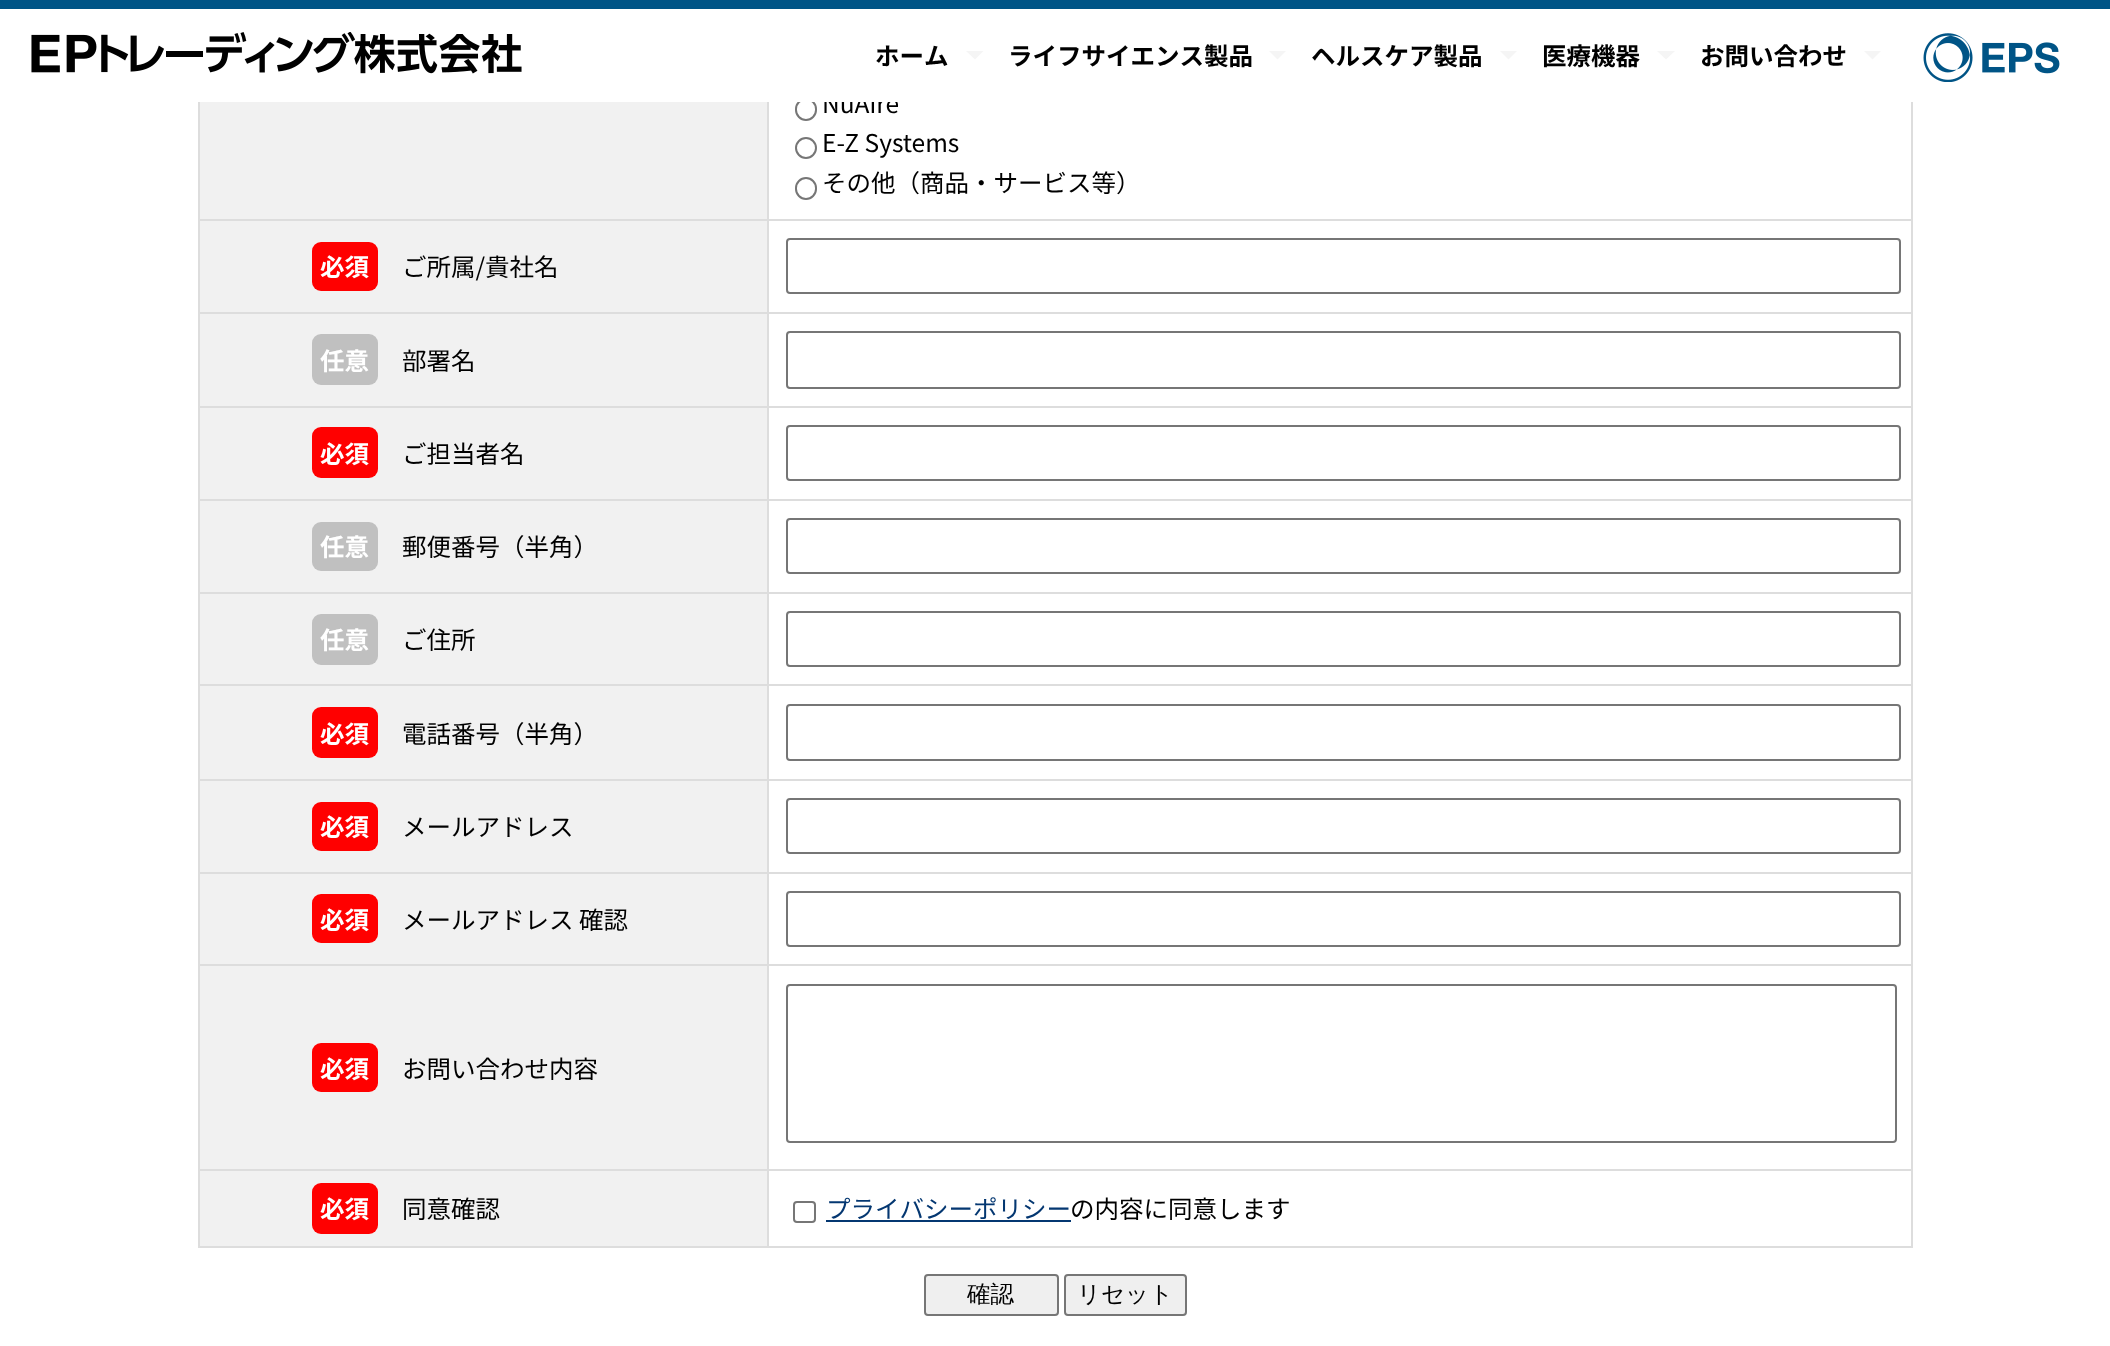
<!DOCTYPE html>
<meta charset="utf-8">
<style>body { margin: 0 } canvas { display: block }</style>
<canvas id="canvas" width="2110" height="1346"></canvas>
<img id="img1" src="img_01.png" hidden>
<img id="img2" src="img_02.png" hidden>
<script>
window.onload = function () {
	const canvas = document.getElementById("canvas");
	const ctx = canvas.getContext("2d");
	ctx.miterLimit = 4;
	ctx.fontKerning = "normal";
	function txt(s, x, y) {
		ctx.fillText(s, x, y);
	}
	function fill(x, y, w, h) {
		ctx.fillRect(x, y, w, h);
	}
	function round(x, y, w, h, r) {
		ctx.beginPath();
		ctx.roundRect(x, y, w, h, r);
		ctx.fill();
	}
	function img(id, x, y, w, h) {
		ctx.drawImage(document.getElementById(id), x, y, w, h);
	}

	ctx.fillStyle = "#FFFFFF";
	fill(0, 0, 2110, 1346);
	ctx.fillStyle = "#005486";
	fill(0, 0, 2110, 9);
	img("img1", 31, 32, 491, 42);
	ctx.fillStyle = "#F5F5F5";
	ctx.beginPath();
	ctx.moveTo(966, 51);
	ctx.lineTo(983.5, 51);
	ctx.lineTo(975, 59.5);
	ctx.closePath();
	ctx.fill();
	ctx.beginPath();
	ctx.moveTo(1269, 51);
	ctx.lineTo(1286, 51);
	ctx.lineTo(1277.5, 59.5);
	ctx.closePath();
	ctx.fill();
	ctx.beginPath();
	ctx.moveTo(1500, 51);
	ctx.lineTo(1517, 51);
	ctx.lineTo(1508.5, 59.5);
	ctx.closePath();
	ctx.fill();
	ctx.beginPath();
	ctx.moveTo(1657, 51);
	ctx.lineTo(1675, 51);
	ctx.lineTo(1666, 59.5);
	ctx.closePath();
	ctx.fill();
	ctx.beginPath();
	ctx.moveTo(1864, 51);
	ctx.lineTo(1881, 51);
	ctx.lineTo(1872.5, 59.5);
	ctx.closePath();
	ctx.fill();
	img("img2", 1923, 33, 137, 49);
	ctx.fillStyle = "#DDDDDD";
	fill(1911, 102, 2, 1146);
	fill(198, 1246, 1715, 2);
	fill(198, 102, 2, 1146);
	ctx.fillStyle = "#F1F1F1";
	fill(200, 102, 567, 117);
	ctx.fillStyle = "#DDDDDD";
	fill(767, 219, 1146, 2);
	fill(767, 312, 1146, 2);
	fill(767, 406, 1146, 2);
	fill(767, 499, 1146, 2);
	fill(767, 592, 1146, 2);
	fill(767, 684, 1146, 2);
	fill(767, 779, 1146, 2);
	fill(767, 872, 1146, 2);
	fill(767, 964, 1146, 2);
	fill(767, 1169, 1146, 2);
	fill(767, 1169, 2, 79);
	fill(198, 1169, 570, 2);
	fill(767, 964, 2, 207);
	fill(198, 964, 570, 2);
	fill(767, 872, 2, 94);
	fill(198, 872, 570, 2);
	fill(767, 779, 2, 94);
	fill(198, 779, 570, 2);
	fill(767, 684, 2, 97);
	fill(198, 684, 570, 2);
	fill(767, 592, 2, 94);
	fill(198, 592, 570, 2);
	fill(767, 499, 2, 94);
	fill(198, 499, 570, 2);
	fill(767, 406, 2, 95);
	fill(198, 406, 570, 2);
	fill(767, 312, 2, 96);
	fill(198, 312, 570, 2);
	fill(767, 219, 2, 94);
	fill(198, 219, 570, 2);
	fill(767, 102, 2, 119);
	ctx.beginPath();
	ctx.roundRect(796, 99, 20, 21, 10);
	ctx.strokeStyle = "#767676";
	ctx.lineWidth = 2;
	ctx.stroke();
	ctx.beginPath();
	ctx.arc(806, 148, 10, 0, Math.PI * 2);
	ctx.stroke();
	ctx.beginPath();
	ctx.roundRect(796, 178, 20, 21, 10);
	ctx.stroke();
	ctx.fillStyle = "#F1F1F1";
	fill(200, 221, 567, 91);
	ctx.fillStyle = "#FF0000";
	round(312, 242, 66, 49, 9);
	ctx.beginPath();
	ctx.roundRect(787, 239, 1113, 54, 3);
	ctx.stroke();
	ctx.fillStyle = "#F1F1F1";
	fill(200, 314, 567, 92);
	ctx.fillStyle = "#C0C0C0";
	round(312, 334, 66, 51, 9);
	ctx.beginPath();
	ctx.roundRect(787, 332, 1113, 56, 3);
	ctx.stroke();
	ctx.fillStyle = "#F1F1F1";
	fill(200, 408, 567, 91);
	ctx.fillStyle = "#FF0000";
	round(312, 427, 66, 51, 9);
	ctx.beginPath();
	ctx.roundRect(787, 426, 1113, 54, 3);
	ctx.stroke();
	ctx.fillStyle = "#F1F1F1";
	fill(200, 501, 567, 91);
	ctx.fillStyle = "#C0C0C0";
	round(312, 522, 66, 49, 9);
	ctx.beginPath();
	ctx.roundRect(787, 519, 1113, 54, 3);
	ctx.stroke();
	ctx.fillStyle = "#F1F1F1";
	fill(200, 594, 567, 90);
	ctx.fillStyle = "#C0C0C0";
	round(312, 614, 66, 51, 9);
	ctx.beginPath();
	ctx.roundRect(787, 612, 1113, 54, 3);
	ctx.stroke();
	ctx.fillStyle = "#F1F1F1";
	fill(200, 686, 567, 93);
	ctx.fillStyle = "#FF0000";
	round(312, 707, 66, 51, 9);
	ctx.beginPath();
	ctx.roundRect(787, 705, 1113, 55, 3);
	ctx.stroke();
	ctx.fillStyle = "#F1F1F1";
	fill(200, 781, 567, 91);
	ctx.fillStyle = "#FF0000";
	round(312, 802, 66, 49, 9);
	ctx.beginPath();
	ctx.roundRect(787, 799, 1113, 54, 3);
	ctx.stroke();
	ctx.fillStyle = "#F1F1F1";
	fill(200, 874, 567, 90);
	ctx.fillStyle = "#FF0000";
	round(312, 894, 66, 49, 9);
	ctx.beginPath();
	ctx.roundRect(787, 892, 1113, 54, 3);
	ctx.stroke();
	ctx.fillStyle = "#F1F1F1";
	fill(200, 966, 567, 203);
	ctx.fillStyle = "#FF0000";
	round(312, 1043, 66, 49, 9);
	ctx.beginPath();
	ctx.roundRect(787, 985, 1109, 157, 3);
	ctx.stroke();
	ctx.fillStyle = "#F1F1F1";
	fill(200, 1171, 567, 75);
	ctx.fillStyle = "#FF0000";
	round(312, 1183, 66, 51, 9);
	ctx.beginPath();
	ctx.roundRect(794, 1202, 21, 20, 3);
	ctx.stroke();
	ctx.fillStyle = "#043771";
	fill(826, 1220, 245, 2);
	ctx.fillStyle = "#EFEFEF";
	ctx.beginPath();
	ctx.roundRect(925, 1275, 133, 40, 3);
	ctx.fill();
	ctx.stroke();
	ctx.beginPath();
	ctx.roundRect(1065, 1275, 121, 40, 3);
	ctx.fill();
	ctx.stroke();
	ctx.font = "bold 24.5px Noto Sans JP";
	ctx.fillStyle = "#000000";
	txt("ホーム", 875, 65);
	txt("ライフサイエンス製品", 1008, 65);
	txt("ヘルスケア製品", 1311, 65);
	txt("医療機器", 1542, 65);
	txt("お問い合わせ", 1700, 65);
	ctx.font = "24.5px Noto Sans JP";
	txt("NuAire", 822, 113);
	ctx.fillStyle = "#FFFFFF";
	fill(797, 94, 101, 8);
	ctx.fillStyle = "#000000";
	txt("E-Z Systems", 822, 152);
	txt("その他（商品・サービス等）", 822, 192);
	ctx.font = "bold 24.5px Noto Sans JP";
	ctx.fillStyle = "#FFFFFF";
	txt("必須", 320, 276);
	ctx.font = "24.5px Noto Sans JP";
	ctx.fillStyle = "#000000";
	txt("ご所属/貴社名", 402, 276);
	ctx.font = "bold 24.5px Noto Sans JP";
	ctx.fillStyle = "#FFFFFF";
	txt("任意", 320, 370);
	ctx.font = "24.5px Noto Sans JP";
	ctx.fillStyle = "#000000";
	txt("部署名", 402, 370);
	ctx.font = "bold 24.5px Noto Sans JP";
	ctx.fillStyle = "#FFFFFF";
	txt("必須", 320, 463);
	ctx.font = "24.5px Noto Sans JP";
	ctx.fillStyle = "#000000";
	txt("ご担当者名", 402, 463);
	ctx.font = "bold 24.5px Noto Sans JP";
	ctx.fillStyle = "#FFFFFF";
	txt("任意", 320, 556);
	ctx.font = "24.5px Noto Sans JP";
	ctx.fillStyle = "#000000";
	txt("郵便番号（半角）", 402, 556);
	ctx.font = "bold 24.5px Noto Sans JP";
	ctx.fillStyle = "#FFFFFF";
	txt("任意", 320, 649);
	ctx.font = "24.5px Noto Sans JP";
	ctx.fillStyle = "#000000";
	txt("ご住所", 402, 649);
	ctx.font = "bold 24.5px Noto Sans JP";
	ctx.fillStyle = "#FFFFFF";
	txt("必須", 320, 743);
	ctx.font = "24.5px Noto Sans JP";
	ctx.fillStyle = "#000000";
	txt("電話番号（半角）", 402, 743);
	ctx.font = "bold 24.5px Noto Sans JP";
	ctx.fillStyle = "#FFFFFF";
	txt("必須", 320, 836);
	ctx.font = "24.5px Noto Sans JP";
	ctx.fillStyle = "#000000";
	txt("メールアドレス", 402, 836);
	ctx.font = "bold 24.5px Noto Sans JP";
	ctx.fillStyle = "#FFFFFF";
	txt("必須", 320, 929);
	ctx.font = "24.5px Noto Sans JP";
	ctx.fillStyle = "#000000";
	txt("メールアドレス 確認", 402, 929);
	ctx.font = "bold 24.5px Noto Sans JP";
	ctx.fillStyle = "#FFFFFF";
	txt("必須", 320, 1078);
	ctx.font = "24.5px Noto Sans JP";
	ctx.fillStyle = "#000000";
	txt("お問い合わせ内容", 402, 1078);
	ctx.font = "bold 24.5px Noto Sans JP";
	ctx.fillStyle = "#FFFFFF";
	txt("必須", 320, 1218);
	ctx.font = "24.5px Noto Sans JP";
	ctx.fillStyle = "#000000";
	txt("同意確認", 402, 1218);
	ctx.fillStyle = "#043771";
	txt("プライバシーポリシー", 826, 1218);
	ctx.fillStyle = "#000000";
	txt("の内容に同意します", 1070, 1218);
	ctx.font = "500 23.5px WenQuanYi Zen Hei";
	txt("確認", 967, 1302);
	txt("リセット", 1077, 1302);
};
</script>
